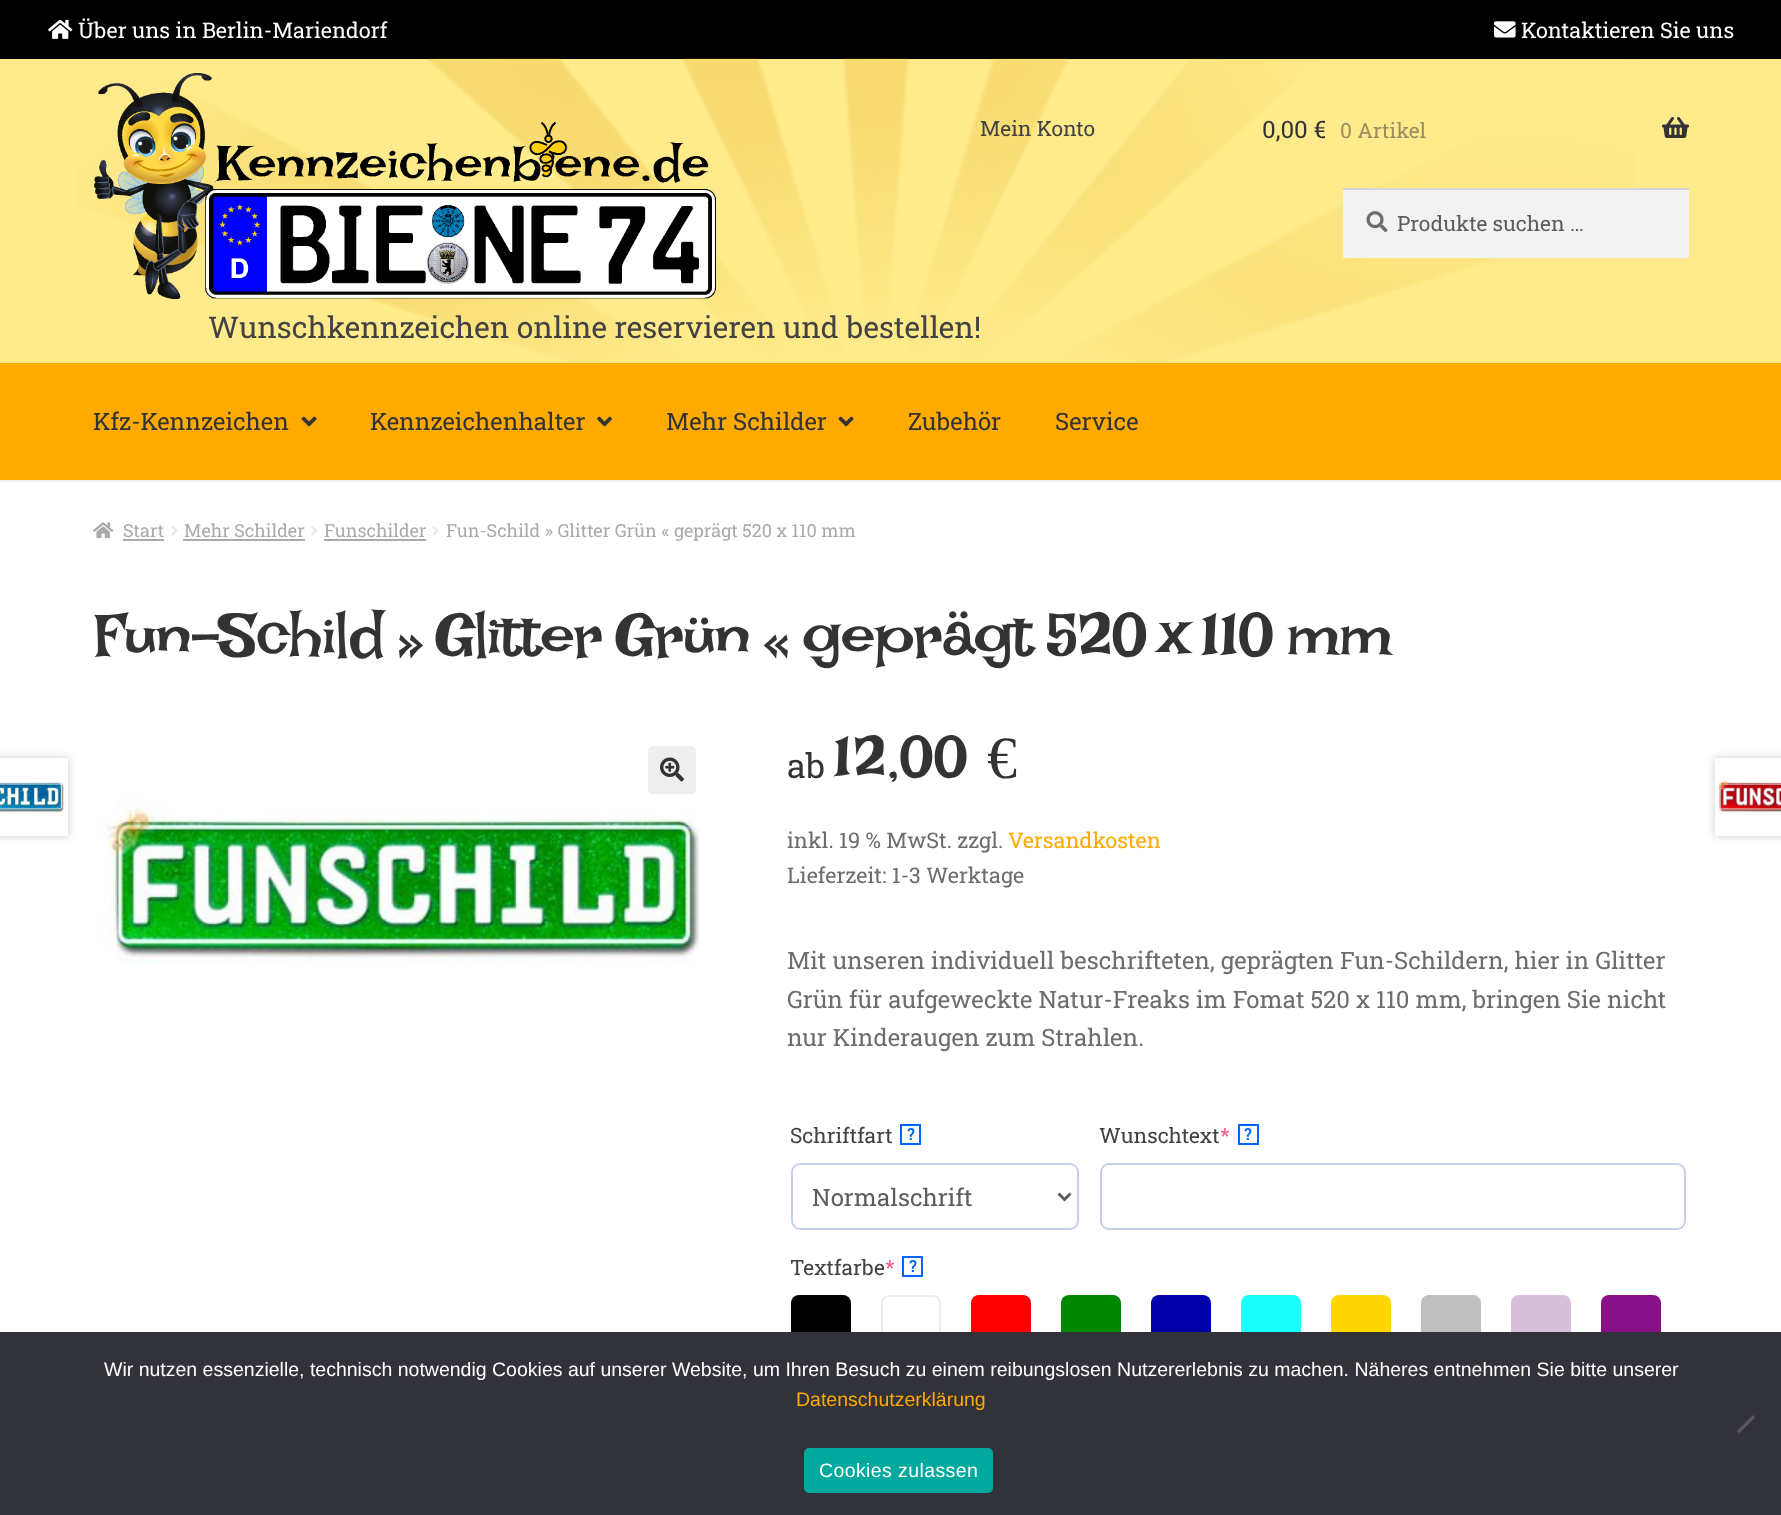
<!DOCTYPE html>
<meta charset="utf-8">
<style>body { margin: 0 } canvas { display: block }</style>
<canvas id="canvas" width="1781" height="1515"></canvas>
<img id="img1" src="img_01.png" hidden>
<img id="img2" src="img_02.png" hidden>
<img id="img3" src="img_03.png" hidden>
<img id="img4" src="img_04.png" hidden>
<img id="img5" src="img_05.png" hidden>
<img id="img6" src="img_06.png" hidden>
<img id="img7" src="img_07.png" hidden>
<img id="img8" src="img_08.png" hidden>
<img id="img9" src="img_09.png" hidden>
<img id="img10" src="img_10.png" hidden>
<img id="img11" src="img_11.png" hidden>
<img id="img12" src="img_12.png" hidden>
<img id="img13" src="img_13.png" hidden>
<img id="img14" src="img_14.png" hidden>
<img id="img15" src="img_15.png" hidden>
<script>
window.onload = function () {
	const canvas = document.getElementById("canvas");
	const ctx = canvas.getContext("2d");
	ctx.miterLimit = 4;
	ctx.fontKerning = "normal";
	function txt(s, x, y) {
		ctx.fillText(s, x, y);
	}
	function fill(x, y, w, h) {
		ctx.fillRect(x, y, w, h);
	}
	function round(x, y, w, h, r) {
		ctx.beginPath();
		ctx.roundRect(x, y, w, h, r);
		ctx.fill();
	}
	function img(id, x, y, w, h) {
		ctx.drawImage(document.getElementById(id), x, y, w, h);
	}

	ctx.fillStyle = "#FFFFFF";
	fill(0, 0, 1781, 1515);
	ctx.fillStyle = "#000000";
	fill(0, 0, 1781, 59);
	img("img1", 48, 19, 25, 20);
	img("img2", 1494, 21, 22, 17);
	ctx.fillStyle = "#FFEB8C";
	fill(0, 59, 1781, 304);
	img("img3", 76, 58, 1561, 305);
	ctx.fillStyle = "#F0F0F0";
	fill(0, 480, 1781, 2);
	img("img4", 1662, 117, 27, 21);
	ctx.fillStyle = "#F2F2F2";
	fill(1343, 190, 346, 68);
	img("img5", 1366, 211, 22, 22);
	ctx.fillStyle = "#D4D4D4";
	fill(1343, 188, 346, 2);
	img("img6", 94, 73, 622, 226);
	ctx.fillStyle = "#FFAA00";
	fill(0, 363, 1781, 117);
	img("img7", 301, 416, 16, 11);
	img("img8", 597, 416, 15, 11);
	img("img7", 838, 416, 16, 11);
	img("img9", 93, 522, 21, 17);
	ctx.fillStyle = "#AAAAAA";
	fill(123, 539, 41, 2);
	img("img10", 171, 526, 7, 10);
	fill(183, 539, 122, 2);
	img("img11", 311, 526, 6, 10);
	fill(324, 539, 102, 2);
	img("img10", 432, 526, 7, 10);
	ctx.strokeStyle = "#0066FF";
	ctx.lineWidth = 2;
	ctx.strokeRect(901, 1125, 19, 19);
	ctx.beginPath();
	ctx.roundRect(792, 1164, 286, 65, 8);
	ctx.strokeStyle = "#C6D0E9";
	ctx.stroke();
	ctx.beginPath();
	ctx.moveTo(1058.5, 1193.5);
	ctx.lineTo(1064.5, 1199.5);
	ctx.lineTo(1070.5, 1193.5);
	ctx.strokeStyle = "#5D5D5D";
	ctx.lineWidth = 3;
	ctx.stroke();
	ctx.strokeStyle = "#0066FF";
	ctx.lineWidth = 2;
	ctx.strokeRect(1239, 1125, 19, 19);
	ctx.beginPath();
	ctx.roundRect(1101, 1164, 584, 65, 8);
	ctx.strokeStyle = "#C6D0E9";
	ctx.stroke();
	ctx.strokeStyle = "#0066FF";
	ctx.strokeRect(903, 1257, 19, 19);
	ctx.fillStyle = "#000000";
	round(791, 1295, 60, 60, 8);
	ctx.beginPath();
	ctx.roundRect(882, 1296, 58, 58, 7);
	ctx.strokeStyle = "#EEEEEE";
	ctx.stroke();
	ctx.fillStyle = "#FF0000";
	round(971, 1295, 60, 60, 8);
	ctx.fillStyle = "#008800";
	round(1061, 1295, 60, 60, 8);
	ctx.fillStyle = "#0000AA";
	round(1151, 1295, 60, 60, 8);
	ctx.fillStyle = "#1DFFFF";
	round(1241, 1295, 60, 60, 8);
	ctx.fillStyle = "#FFD700";
	round(1331, 1295, 60, 60, 8);
	ctx.fillStyle = "#C0C0C0";
	round(1421, 1295, 60, 60, 8);
	ctx.fillStyle = "#D8BFDA";
	round(1511, 1295, 60, 60, 8);
	ctx.fillStyle = "#881188";
	round(1601, 1295, 60, 60, 8);
	ctx.fillStyle = "rgba(0, 0, 0, 0.2)";
	ctx.filter = "blur(4px)";
	ctx.beginPath();
	ctx.rect(-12, 758, 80, 78);
	ctx.fill();
	ctx.filter = "none";
	ctx.fillStyle = "#FFFFFF";
	fill(0, 758, 68, 78);
	img("img12", 0, 782, 66, 34);
	ctx.fillStyle = "rgba(0, 0, 0, 0.2)";
	ctx.filter = "blur(4px)";
	ctx.beginPath();
	ctx.rect(1715, 758, 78, 78);
	ctx.fill();
	ctx.filter = "none";
	ctx.fillStyle = "#FFFFFF";
	fill(1715, 758, 66, 78);
	img("img13", 1715, 777, 66, 38);
	ctx.fillStyle = "#EEEEEE";
	round(648, 746, 48, 48, 5);
	img("img14", 660, 757, 24, 25);
	img("img15", 93, 797, 607, 168);
	ctx.fillStyle = "#32323A";
	fill(0, 1332, 1781, 183);
	ctx.fillStyle = "#59595D";
	ctx.beginPath();
	ctx.moveTo(1753, 1415);
	ctx.lineTo(1755, 1417.5);
	ctx.lineTo(1739, 1433.5);
	ctx.lineTo(1737, 1431);
	ctx.closePath();
	ctx.fill();
	ctx.fillStyle = "#00A99D";
	round(804, 1448, 189, 45, 5);
	ctx.font = "21.6px Roboto Slab";
	ctx.fillStyle = "#FFFFFF";
	txt("Über uns in Berlin-Mariendorf", 78, 38);
	txt("Kontaktieren Sie uns", 1521, 38);
	ctx.font = "21px Roboto Slab";
	ctx.fillStyle = "#424242";
	txt("Mein Konto", 980, 136);
	ctx.font = "24px Roboto Slab";
	ctx.fillStyle = "#333333";
	txt("0,00 €", 1262, 138);
	ctx.font = "21px Roboto Slab";
	ctx.fillStyle = "#998F60";
	txt("0 Artikel", 1340, 138);
	ctx.fillStyle = "#5D5D5D";
	txt("Produkte suchen …", 1397, 231);
	ctx.font = "30px Roboto Slab";
	ctx.fillStyle = "#424242";
	txt("Wunschkennzeichen online reservieren und bestellen!", 208, 338);
	ctx.font = "24px Roboto Slab";
	ctx.fillStyle = "#333333";
	txt("Kfz-Kennzeichen", 93, 430);
	txt("Kennzeichenhalter", 370, 430);
	txt("Mehr Schilder", 666, 430);
	txt("Zubehör", 908, 430);
	txt("Service", 1055, 430);
	ctx.font = "18px Roboto Slab";
	ctx.fillStyle = "#AAAAAA";
	txt("Start", 123, 537);
	txt("Mehr Schilder", 184, 537);
	txt("Funschilder", 324, 537);
	txt("Fun-Schild » Glitter Grün « geprägt 520 x 110 mm", 446, 537);
	ctx.letterSpacing = "-1.5px";
	ctx.font = "62.8px Lakki Reddy";
	ctx.fillStyle = "#333333";
	txt("Fun-Schild » Glitter Grün « geprägt 520 x 110 mm", 93, 657);
	ctx.letterSpacing = "0px";
	ctx.font = "34px Roboto Slab";
	txt("ab", 787, 778);
	ctx.font = "60px Lakki Reddy";
	txt("12,00", 833, 778);
	ctx.font = "60px Liberation Serif";
	txt("€", 987, 778);
	ctx.font = "21.6px Roboto Slab";
	ctx.fillStyle = "#6D6D6D";
	txt("inkl. 19 % MwSt. zzgl.", 787, 848);
	ctx.fillStyle = "#FFAA00";
	txt("Versandkosten", 1008, 848);
	ctx.fillStyle = "#6D6D6D";
	txt("Lieferzeit: 1-3 Werktage", 787, 883);
	ctx.font = "24px Roboto Slab";
	txt("Mit unseren individuell beschrifteten, geprägten Fun-Schildern, hier in Glitter", 787, 969);
	txt("Grün für aufgeweckte Natur-Freaks im Fomat 520 x 110 mm, bringen Sie nicht", 787, 1008);
	txt("nur Kinderaugen zum Strahlen.", 787, 1046);
	ctx.font = "21px Roboto Slab";
	ctx.fillStyle = "#424242";
	txt("Schriftfart", 790, 1143);
	ctx.font = "bold 16px Roboto Slab";
	ctx.fillStyle = "#0066FF";
	txt("?", 907, 1140);
	ctx.font = "24px Roboto Slab";
	ctx.fillStyle = "#5D5D5D";
	txt("Normalschrift", 812, 1206);
	ctx.font = "21px Roboto Slab";
	ctx.fillStyle = "#424242";
	txt("Wunschtext", 1099, 1143);
	ctx.fillStyle = "#F25A87";
	txt("*", 1220, 1143);
	ctx.font = "bold 16px Roboto Slab";
	ctx.fillStyle = "#0066FF";
	txt("?", 1244, 1140);
	ctx.font = "21px Roboto Slab";
	ctx.fillStyle = "#424242";
	txt("Textfarbe", 790, 1275);
	ctx.fillStyle = "#F25A87";
	txt("*", 885, 1275);
	ctx.font = "bold 16px Roboto Slab";
	ctx.fillStyle = "#0066FF";
	txt("?", 909, 1272);
	ctx.font = "19.5px Liberation Sans";
	ctx.fillStyle = "#FFFFFF";
	txt("Wir nutzen essenzielle, technisch notwendig Cookies auf unserer Website, um Ihren Besuch zu einem reibungslosen Nutzererlebnis zu machen. Näheres entnehmen Sie bitte unserer", 104, 1376);
	ctx.fillStyle = "#FFAA00";
	txt("Datenschutzerklärung", 796, 1406);
	ctx.letterSpacing = "0.4px";
	ctx.fillStyle = "#FFFFFF";
	txt("Cookies zulassen", 819, 1477);
};
</script>
